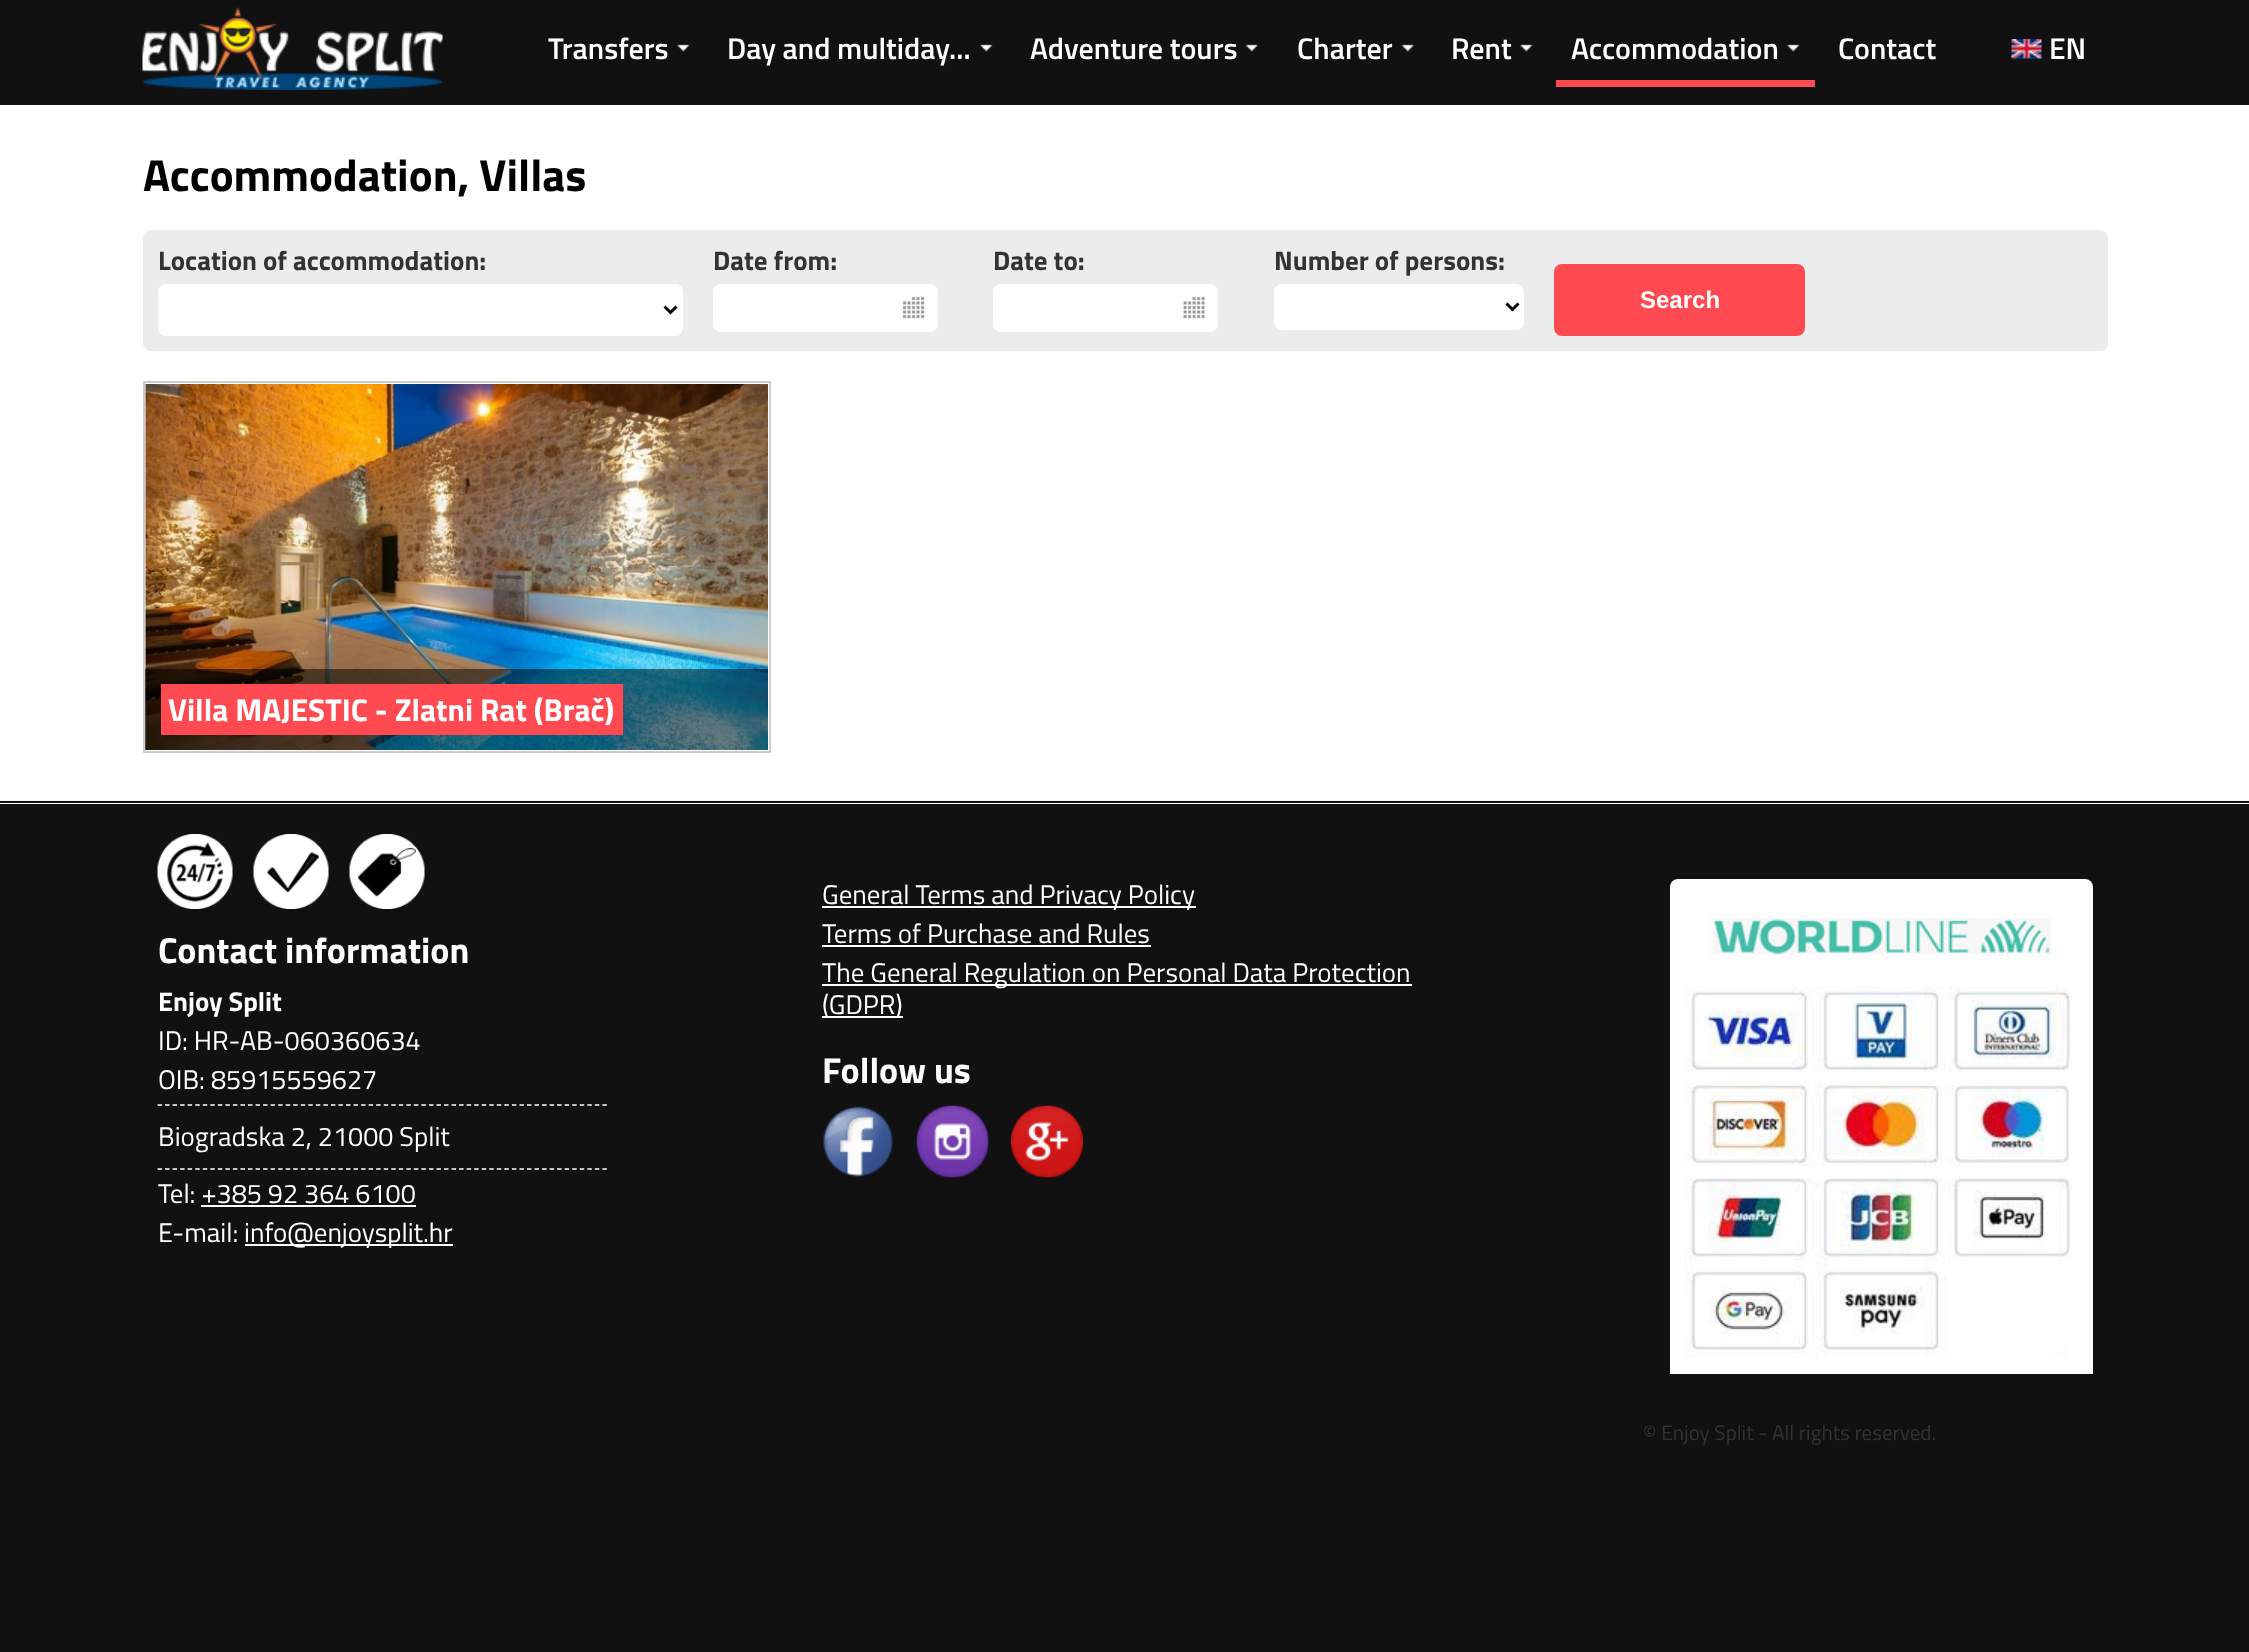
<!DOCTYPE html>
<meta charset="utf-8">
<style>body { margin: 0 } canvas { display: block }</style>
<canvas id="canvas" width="2249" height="1652"></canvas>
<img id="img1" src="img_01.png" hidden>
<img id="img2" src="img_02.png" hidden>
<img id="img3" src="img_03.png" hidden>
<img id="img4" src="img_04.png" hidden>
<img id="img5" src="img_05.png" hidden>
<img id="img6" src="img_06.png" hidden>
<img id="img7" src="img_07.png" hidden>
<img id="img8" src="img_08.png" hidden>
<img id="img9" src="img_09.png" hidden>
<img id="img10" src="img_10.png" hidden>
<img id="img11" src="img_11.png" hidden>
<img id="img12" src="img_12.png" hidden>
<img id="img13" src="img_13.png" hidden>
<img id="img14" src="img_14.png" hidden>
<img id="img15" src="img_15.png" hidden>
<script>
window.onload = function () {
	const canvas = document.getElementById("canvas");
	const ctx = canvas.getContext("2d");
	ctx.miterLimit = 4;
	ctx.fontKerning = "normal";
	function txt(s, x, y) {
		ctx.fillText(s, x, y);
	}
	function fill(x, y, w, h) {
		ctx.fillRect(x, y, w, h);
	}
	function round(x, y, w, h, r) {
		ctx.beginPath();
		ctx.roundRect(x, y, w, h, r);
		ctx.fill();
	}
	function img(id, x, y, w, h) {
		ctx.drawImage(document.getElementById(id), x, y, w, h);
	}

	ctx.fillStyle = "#111111";
	fill(0, 0, 2249, 1652);
	img("img1", 142, 7, 301, 83);
	img("img2", 677, 44, 13, 8);
	img("img2", 980, 44, 13, 8);
	img("img3", 1245, 44, 13, 8);
	img("img3", 1401, 44, 13, 8);
	img("img2", 1520, 44, 13, 8);
	ctx.fillStyle = "#FF4A52";
	fill(1556, 80, 259, 7);
	img("img2", 1787, 44, 13, 8);
	img("img4", 2011, 39, 31, 20);
	ctx.fillStyle = "#FFFFFF";
	fill(0, 105, 2249, 695);
	ctx.fillStyle = "#EBEDEC";
	round(143, 230, 1965, 121, 8);
	ctx.fillStyle = "#FFFFFF";
	round(158, 284, 525, 52, 8);
	ctx.beginPath();
	ctx.moveTo(664.5, 306.5);
	ctx.lineTo(670.5, 312.5);
	ctx.lineTo(676.5, 306.5);
	ctx.strokeStyle = "#000000";
	ctx.lineWidth = 3;
	ctx.stroke();
	round(713, 284, 225, 48, 8);
	img("img5", 902, 296, 23, 23);
	round(993, 284, 225, 48, 8);
	img("img6", 1183, 288, 35, 39);
	round(1274, 284, 250, 46, 8);
	ctx.beginPath();
	ctx.moveTo(1506.5, 303.5);
	ctx.lineTo(1512.5, 309.5);
	ctx.lineTo(1518.5, 303.5);
	ctx.stroke();
	ctx.fillStyle = "#FF4A52";
	round(1554, 264, 251, 72, 8);
	ctx.strokeStyle = "#CCCCCC";
	ctx.lineWidth = 2;
	ctx.strokeRect(144, 382, 626, 370);
	img("img7", 145, 384, 623, 366);
	ctx.fillStyle = "rgba(0, 0, 0, 0.5)";
	fill(145, 669, 623, 81);
	ctx.fillStyle = "#FF4A52";
	fill(161, 684, 462, 51);
	ctx.fillStyle = "#F7F7F7";
	fill(0, 800, 2249, 1);
	ctx.fillStyle = "#FFFFFF";
	fill(0, 803, 2249, 1);
	img("img8", 157, 834, 76, 75);
	img("img9", 253, 834, 76, 75);
	img("img10", 349, 834, 76, 75);
	ctx.beginPath();
	ctx.moveTo(157.5, 1105);
	ctx.lineTo(607.5, 1105);
	ctx.strokeStyle = "#FFFFFF";
	ctx.lineWidth = 1.5;
	ctx.setLineDash([4.5, 3.04]);
	ctx.stroke();
	ctx.beginPath();
	ctx.moveTo(157.5, 1169);
	ctx.lineTo(607.5, 1169);
	ctx.stroke();
	fill(201, 1205, 215, 2);
	fill(245, 1244, 208, 2);
	fill(822, 906, 374, 2);
	fill(822, 945, 329, 2);
	fill(822, 984, 590, 2);
	fill(822, 1016, 81, 2);
	img("img11", 823, 1106, 70, 71);
	img("img12", 916, 1105, 73, 73);
	img("img13", 1011, 1105, 72, 73);
	ctx.beginPath();
	ctx.roundRect(1670, 879, 423, 495, [8, 8, 0, 0]);
	ctx.fill();
	img("img14", 1709, 913, 344, 48);
	img("img15", 1684, 986, 388, 373);
	ctx.font = "600 30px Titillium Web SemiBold";
	txt("Transfers", 548, 59);
	txt("Day and multiday...", 727, 59);
	txt("Adventure tours", 1030, 59);
	txt("Charter", 1297, 59);
	txt("Rent", 1451, 59);
	txt("Accommodation", 1571, 59);
	txt("Contact", 1838, 59);
	txt("EN", 2049, 59);
	ctx.font = "bold 45px Titillium Web";
	ctx.fillStyle = "#000000";
	txt("Accommodation, Villas", 143, 191);
	ctx.font = "bold 27px Titillium Web";
	ctx.fillStyle = "#333333";
	txt("Location of accommodation:", 158, 270);
	txt("Date from:", 713, 270);
	txt("Date to:", 993, 270);
	txt("Number of persons:", 1274, 270);
	ctx.font = "bold 24px Liberation Sans";
	ctx.fillStyle = "#FFFFFF";
	txt("Search", 1640, 308);
	ctx.font = "bold 31.5px Titillium Web";
	txt("Villa MAJESTIC - Zlatni Rat (Brač)", 168, 721);
	ctx.font = "bold 36px Titillium Web";
	txt("Contact information", 158, 963);
	ctx.font = "bold 27px Titillium Web";
	txt("Enjoy Split", 158, 1011);
	ctx.font = "27px Titillium Web";
	txt("ID: HR-AB-060360634", 158, 1050);
	txt("OIB: 85915559627", 158, 1089);
	txt("Biogradska 2, 21000 Split", 158, 1146);
	txt("Tel: +385 92 364 6100", 158, 1203);
	txt("E-mail:", 158, 1242);
	txt("info@enjoysplit.hr", 244, 1242);
	txt("General Terms and Privacy Policy", 822, 904);
	txt("Terms of Purchase and Rules", 822, 943);
	txt("The General Regulation on Personal Data Protection", 822, 982);
	txt("(GDPR)", 822, 1014);
	ctx.font = "bold 36px Titillium Web";
	txt("Follow us", 822, 1083);
	ctx.font = "21px Titillium Web";
	ctx.fillStyle = "#333333";
	txt("© Enjoy Split - All rights reserved.", 1643, 1440);
};
</script>
